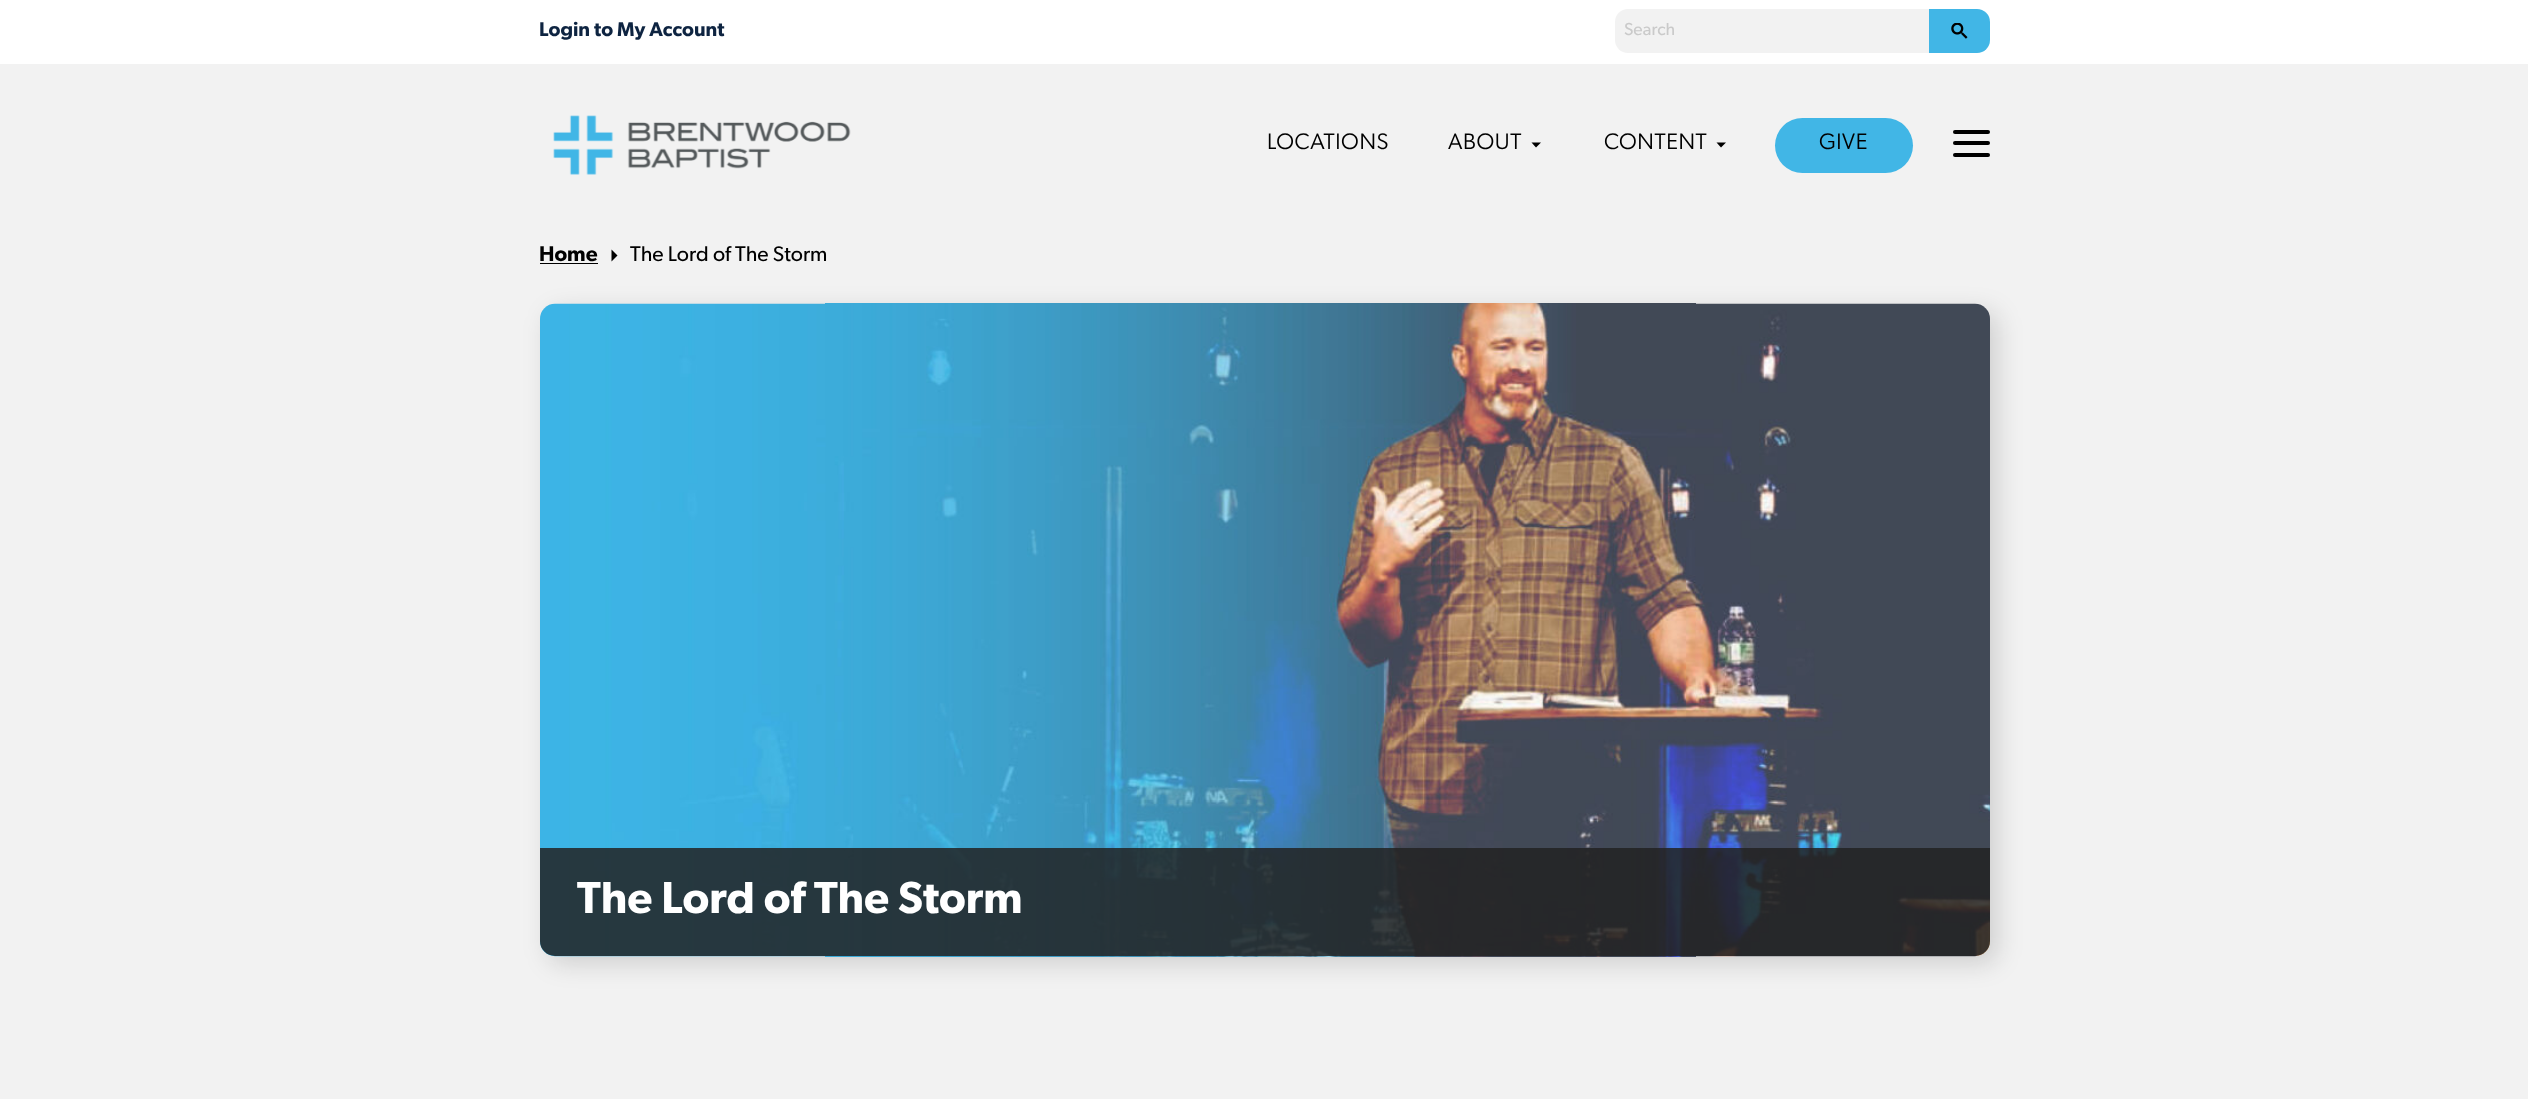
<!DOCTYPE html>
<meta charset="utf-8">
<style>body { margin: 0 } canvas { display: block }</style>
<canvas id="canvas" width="2528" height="1099"></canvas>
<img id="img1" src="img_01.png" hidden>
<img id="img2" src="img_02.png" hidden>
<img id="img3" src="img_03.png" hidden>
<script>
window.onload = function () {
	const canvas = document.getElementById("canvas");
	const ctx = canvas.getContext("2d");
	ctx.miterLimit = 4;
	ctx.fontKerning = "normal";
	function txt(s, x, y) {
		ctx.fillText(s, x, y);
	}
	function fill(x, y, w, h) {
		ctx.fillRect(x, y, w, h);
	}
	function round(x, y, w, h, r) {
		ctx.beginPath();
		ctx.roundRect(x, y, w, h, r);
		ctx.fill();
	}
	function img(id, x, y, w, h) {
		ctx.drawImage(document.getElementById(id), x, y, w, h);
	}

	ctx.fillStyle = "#F2F2F2";
	fill(0, 0, 2528, 1099);
	ctx.fillStyle = "#FFFFFF";
	fill(0, 0, 2528, 64);
	ctx.fillStyle = "#F2F2F2";
	ctx.beginPath();
	ctx.roundRect(1615, 9, 314, 44, [13, 0, 0, 13]);
	ctx.fill();
	ctx.fillStyle = "#41B6E6";
	ctx.beginPath();
	ctx.roundRect(1929, 9, 61, 44, [0, 13, 13, 0]);
	ctx.fill();
	img("img1", 1951, 23, 17, 16);
	img("img2", 553, 115, 298, 60);
	ctx.fillStyle = "#000000";
	ctx.beginPath();
	ctx.moveTo(1531.5, 142.5);
	ctx.lineTo(1536, 147.5);
	ctx.lineTo(1541, 142.5);
	ctx.closePath();
	ctx.fill();
	ctx.beginPath();
	ctx.moveTo(1716.5, 142.5);
	ctx.lineTo(1721, 147.5);
	ctx.lineTo(1726, 142.5);
	ctx.closePath();
	ctx.fill();
	ctx.fillStyle = "#41B6E6";
	round(1775, 118, 138, 55, 27.5);
	ctx.fillStyle = "#000000";
	round(1953, 130, 37, 4, 2);
	round(1953, 141, 37, 4, 2);
	round(1953, 153, 37, 4, 2);
	fill(540, 263, 58, 1);
	ctx.beginPath();
	ctx.moveTo(611.5, 261.5);
	ctx.lineTo(617.5, 255.5);
	ctx.lineTo(611.5, 249.5);
	ctx.closePath();
	ctx.fill();
	ctx.fillStyle = "rgba(11, 11, 11, 0.15)";
	ctx.filter = "blur(12.5px)";
	ctx.beginPath();
	ctx.roundRect(548, 311, 1450, 653, 15);
	ctx.fill();
	ctx.filter = "none";
	img("img3", 540, 303, 1450, 654);
	ctx.fillStyle = "rgba(34, 34, 34, 0.85)";
	ctx.beginPath();
	ctx.roundRect(540, 848, 1450, 108, [0, 0, 15, 15]);
	ctx.fill();
	ctx.font = "600 20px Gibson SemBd";
	ctx.fillStyle = "#0E2441";
	txt("Login to My Account", 539, 36);
	ctx.font = "17.5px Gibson";
	ctx.fillStyle = "#CACACA";
	txt("Search", 1624, 35);
	ctx.letterSpacing = "0.6px";
	ctx.font = "22.5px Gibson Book";
	ctx.fillStyle = "#000000";
	txt("LOCATIONS", 1267, 149);
	txt("ABOUT", 1448, 149);
	txt("CONTENT", 1604, 149);
	txt("GIVE", 1819, 149);
	ctx.letterSpacing = "0px";
	ctx.font = "600 21.25px Gibson SemBd";
	txt("Home", 539, 261);
	ctx.font = "21.25px Gibson";
	txt("The Lord of The Storm", 630, 261);
	ctx.font = "600 45px Gibson SemBd";
	ctx.fillStyle = "#FFFFFF";
	txt("The Lord of The Storm", 577, 913);
};
</script>
